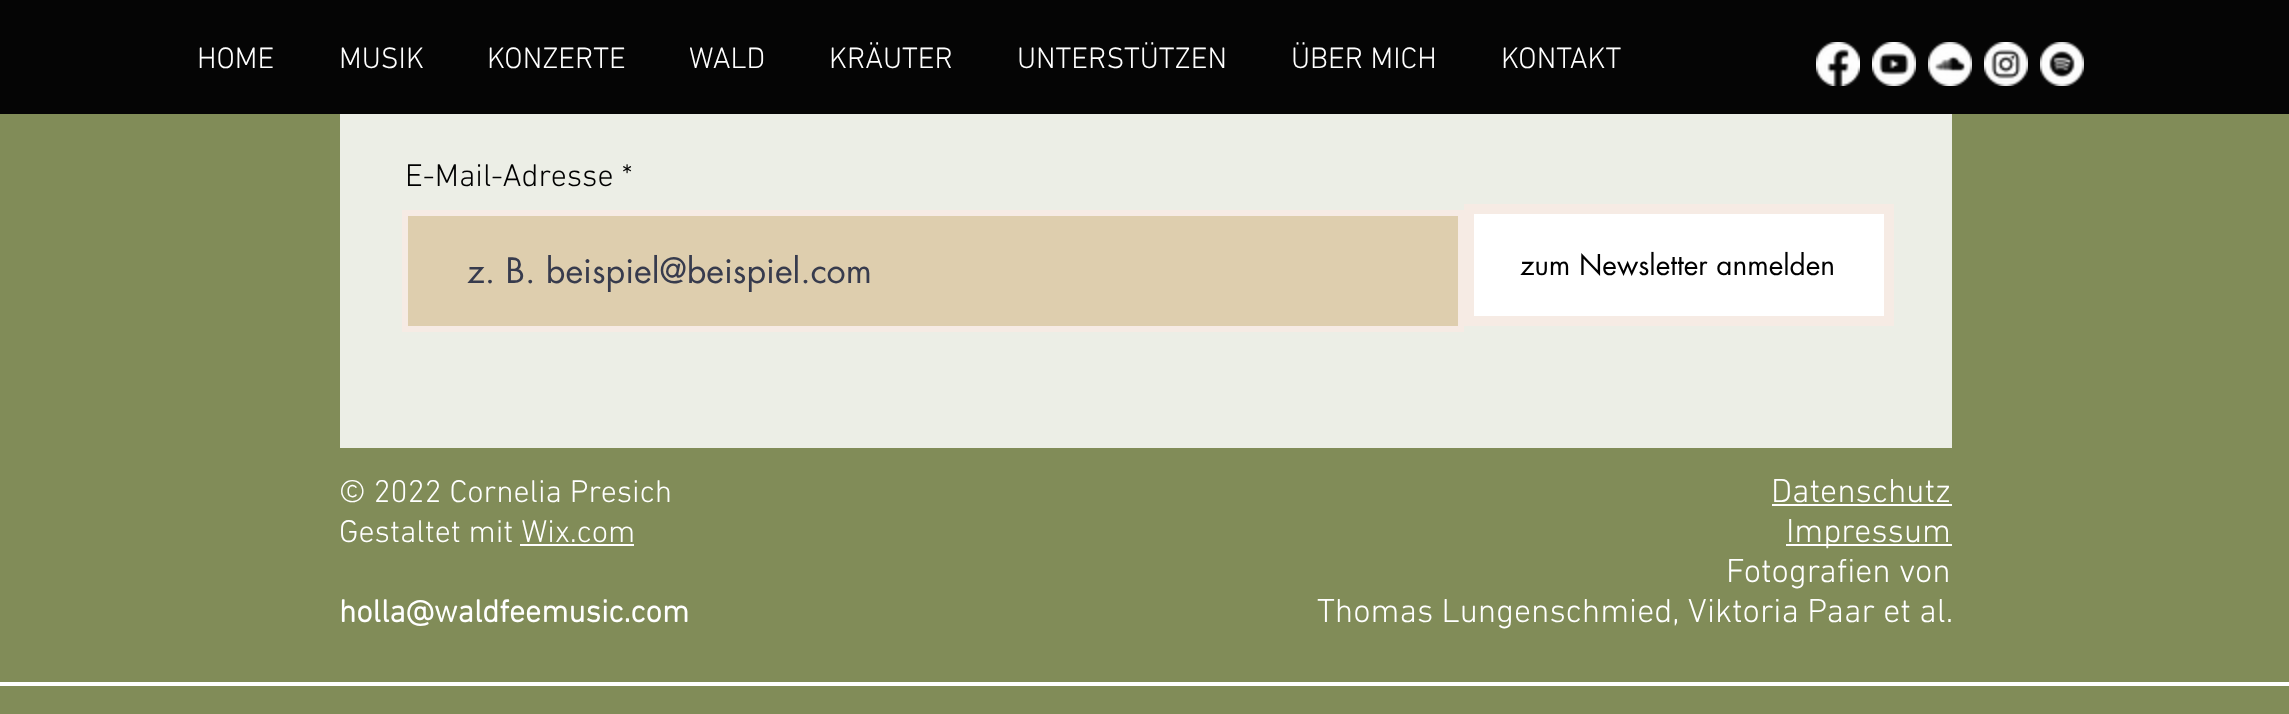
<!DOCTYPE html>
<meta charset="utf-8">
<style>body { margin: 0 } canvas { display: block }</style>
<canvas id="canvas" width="2289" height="714"></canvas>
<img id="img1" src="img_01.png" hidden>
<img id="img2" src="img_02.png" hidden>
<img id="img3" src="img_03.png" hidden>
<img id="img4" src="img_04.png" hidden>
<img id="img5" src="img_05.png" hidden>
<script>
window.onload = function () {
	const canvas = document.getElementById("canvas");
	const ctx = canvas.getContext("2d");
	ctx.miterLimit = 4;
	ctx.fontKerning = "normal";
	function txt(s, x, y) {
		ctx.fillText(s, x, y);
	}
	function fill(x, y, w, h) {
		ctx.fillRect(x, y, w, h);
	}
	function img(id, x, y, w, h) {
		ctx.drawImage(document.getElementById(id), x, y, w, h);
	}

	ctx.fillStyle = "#818C58";
	fill(0, 0, 2289, 714);
	ctx.fillStyle = "#050505";
	fill(0, 0, 2289, 114);
	img("img1", 1816, 42, 44, 44);
	img("img2", 1872, 42, 44, 44);
	img("img3", 1928, 42, 44, 44);
	img("img4", 1984, 42, 44, 44);
	img("img5", 2040, 42, 44, 44);
	ctx.fillStyle = "#ECEEE6";
	fill(340, 114, 1612, 334);
	ctx.fillStyle = "#DECEAE";
	ctx.beginPath();
	ctx.rect(405, 213, 1056, 116);
	ctx.fill();
	ctx.strokeStyle = "#F6EBE4";
	ctx.lineWidth = 6;
	ctx.stroke();
	ctx.fillStyle = "#FFFFFF";
	ctx.beginPath();
	ctx.rect(1469, 209, 420, 112);
	ctx.fill();
	ctx.lineWidth = 10;
	ctx.stroke();
	fill(520, 544, 114, 2);
	fill(1772, 504, 180, 2);
	fill(1786, 544, 166, 2);
	fill(0, 682, 2289, 4);
	ctx.font = "300 30px 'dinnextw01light'";
	txt("HOME", 197, 68);
	txt("MUSIK", 339, 68);
	txt("KONZERTE", 487, 68);
	txt("WALD", 689, 68);
	txt("KRÄUTER", 829, 68);
	txt("UNTERSTÜTZEN", 1017, 68);
	txt("ÜBER MICH", 1291, 68);
	txt("KONTAKT", 1501, 68);
	ctx.font = "300 32px 'dinnextw01light'";
	ctx.fillStyle = "#000000";
	txt("E-Mail-Adresse *", 405, 186);
	ctx.font = "34px futura";
	ctx.fillStyle = "#373B4D";
	txt("z. B. beispiel@beispiel.com", 467, 283);
	ctx.font = "28px futura";
	ctx.fillStyle = "#000000";
	txt("zum Newsletter anmelden", 1520, 275);
	ctx.font = "300 32px 'dinnextw01light'";
	ctx.fillStyle = "#FFFFFF";
	txt("© 2022 Cornelia Presich", 339, 502);
	txt("Gestaltet mit Wix.com", 339, 542);
	ctx.font = "bold 32px 'dinnextw01light'";
	txt("holla@waldfeemusic.com", 339, 622);
	ctx.font = "300 34px 'dinnextw01light'";
	txt("Datenschutz", 1771, 502);
	txt("Impressum", 1786, 542);
	txt("Fotografien von", 1726, 582);
	txt("Thomas Lungenschmied, Viktoria Paar et al.", 1317, 622);
};
</script>
